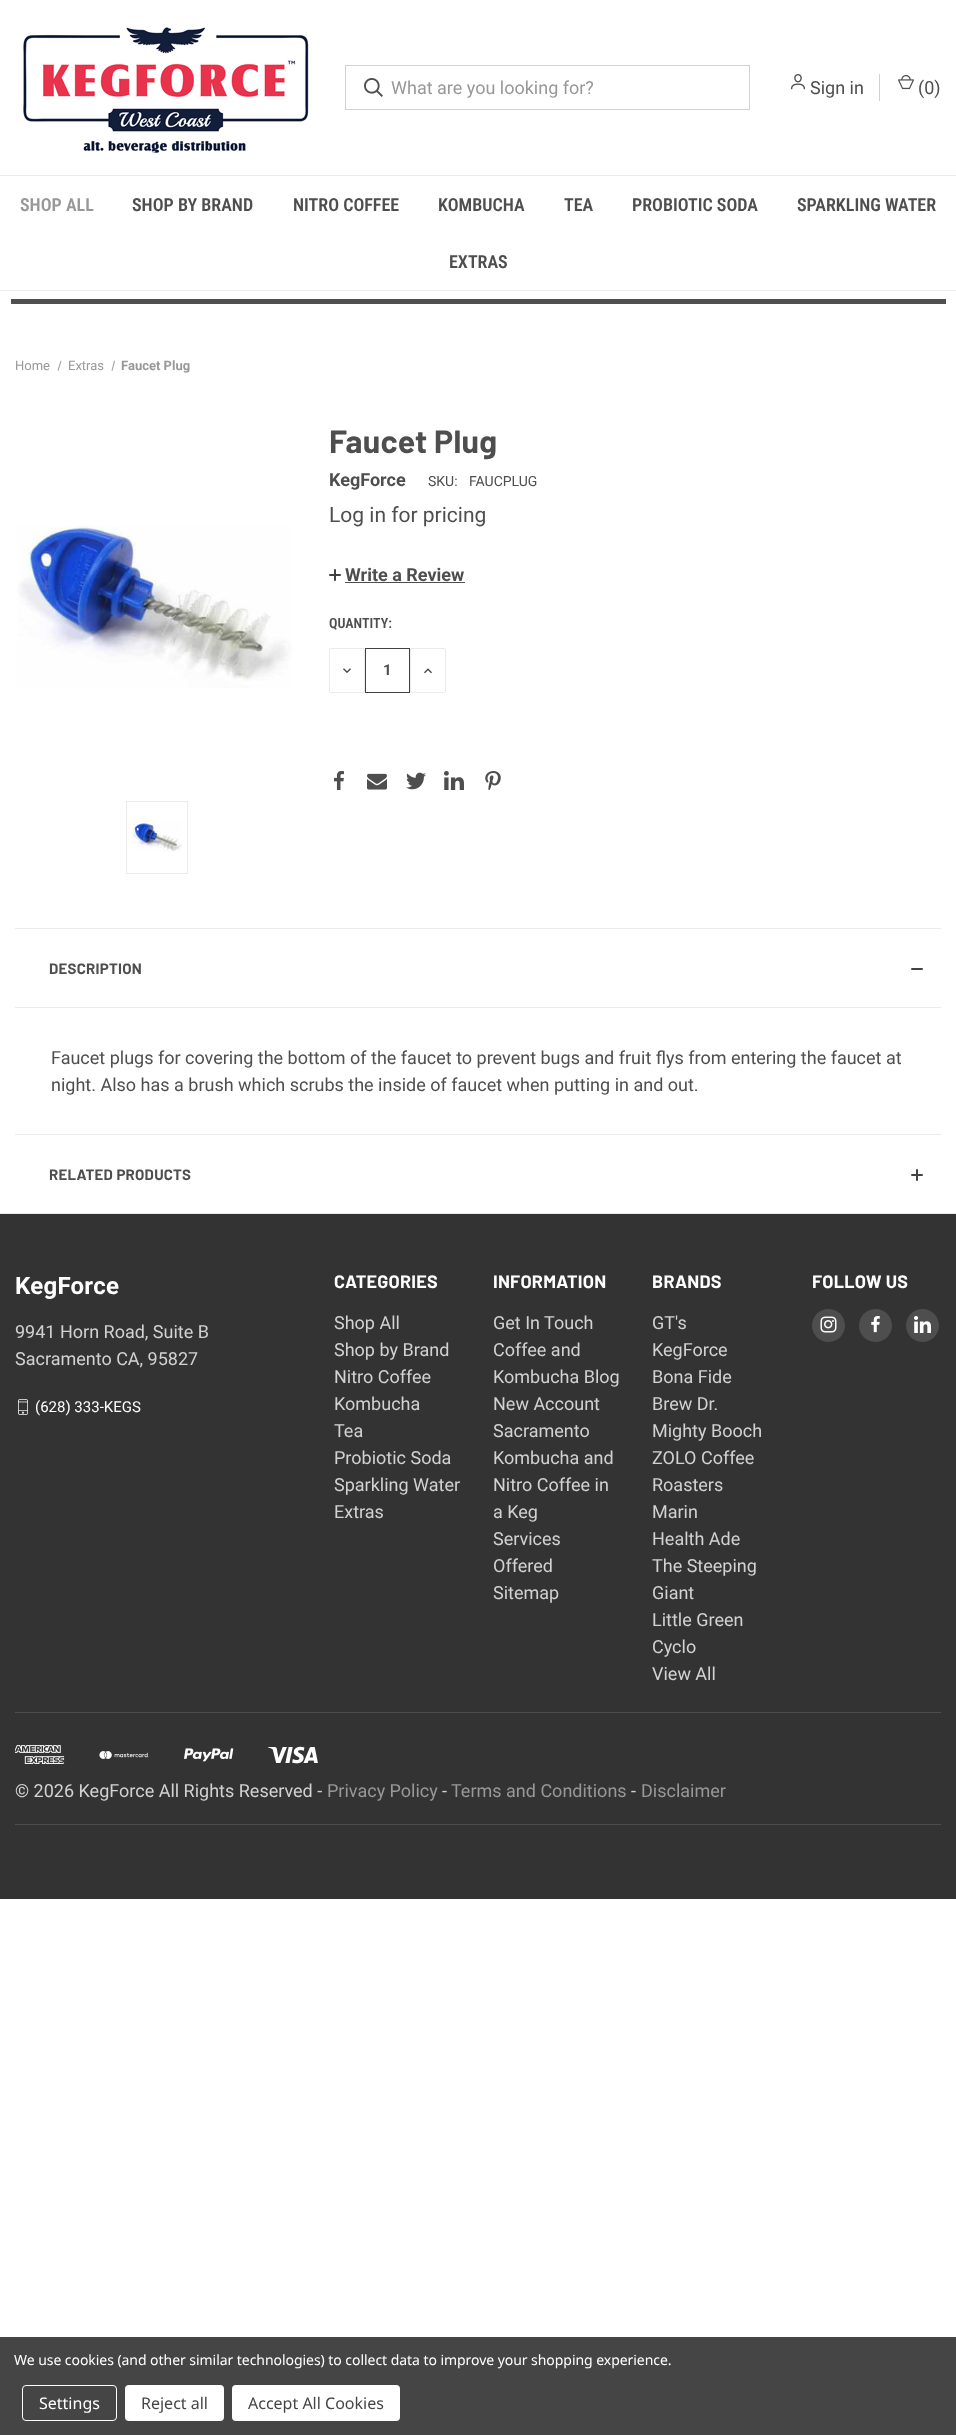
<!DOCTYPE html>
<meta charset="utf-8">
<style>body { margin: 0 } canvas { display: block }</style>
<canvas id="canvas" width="956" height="2435"></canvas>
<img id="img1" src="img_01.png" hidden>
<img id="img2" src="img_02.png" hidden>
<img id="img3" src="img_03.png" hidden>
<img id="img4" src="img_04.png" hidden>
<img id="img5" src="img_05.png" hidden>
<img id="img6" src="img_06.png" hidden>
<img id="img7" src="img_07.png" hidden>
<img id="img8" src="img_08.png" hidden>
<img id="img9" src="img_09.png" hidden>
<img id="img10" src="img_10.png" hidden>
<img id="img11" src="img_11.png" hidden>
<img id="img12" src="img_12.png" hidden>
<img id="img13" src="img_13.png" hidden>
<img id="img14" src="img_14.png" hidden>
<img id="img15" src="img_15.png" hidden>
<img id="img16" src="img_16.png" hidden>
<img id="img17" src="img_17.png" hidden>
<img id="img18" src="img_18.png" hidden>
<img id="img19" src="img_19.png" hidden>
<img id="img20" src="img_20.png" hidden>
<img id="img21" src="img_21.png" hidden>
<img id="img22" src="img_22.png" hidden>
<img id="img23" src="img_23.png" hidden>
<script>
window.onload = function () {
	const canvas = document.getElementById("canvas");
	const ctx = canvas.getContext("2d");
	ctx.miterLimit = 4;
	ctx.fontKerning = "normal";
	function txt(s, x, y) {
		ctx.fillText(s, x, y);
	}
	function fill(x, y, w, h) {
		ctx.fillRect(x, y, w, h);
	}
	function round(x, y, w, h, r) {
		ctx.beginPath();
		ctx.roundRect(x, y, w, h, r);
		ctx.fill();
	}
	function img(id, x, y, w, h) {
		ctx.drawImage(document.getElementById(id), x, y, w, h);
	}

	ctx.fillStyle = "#FFFFFF";
	fill(0, 0, 956, 2435);
	img("img1", 23, 27, 286, 126);
	ctx.strokeStyle = "#D2D2D2";
	ctx.strokeRect(345.5, 65.5, 404, 44);
	img("img2", 364, 78, 19, 19);
	img("img3", 791, 74, 14, 16);
	ctx.fillStyle = "#D2D2D2";
	fill(879, 74, 1, 27);
	img("img4", 898, 75, 16, 15);
	ctx.fillStyle = "#EBEBEB";
	fill(0, 175, 956, 1);
	fill(0, 290, 956, 1);
	ctx.fillStyle = "#4F4F4F";
	fill(11, 299, 935, 5);
	img("img5", 17, 525, 275, 163);
	ctx.strokeStyle = "#EBEBEB";
	ctx.strokeRect(126.5, 801.5, 61, 72);
	img("img6", 132, 820, 50, 32);
	img("img7", 329, 569, 12, 12);
	ctx.fillStyle = "#4E4E4E";
	fill(345, 582, 120, 1);
	ctx.beginPath();
	ctx.roundRect(329.5, 648.5, 35, 44, 1.5);
	ctx.stroke();
	img("img8", 343, 668, 8, 5);
	ctx.strokeStyle = "#424242";
	ctx.strokeRect(365.5, 648.5, 44, 44);
	ctx.beginPath();
	ctx.roundRect(410.5, 648.5, 35, 44, 1.5);
	ctx.strokeStyle = "#EBEBEB";
	ctx.stroke();
	img("img9", 424, 668, 8, 6);
	img("img10", 334, 771, 10, 19);
	img("img11", 367, 773, 20, 17);
	img("img12", 406, 772, 20, 18);
	img("img13", 444, 771, 20, 19);
	img("img14", 485, 771, 16, 19);
	ctx.fillStyle = "#EBEBEB";
	fill(15, 928, 926, 1);
	fill(15, 1007, 926, 1);
	img("img15", 911, 968, 12, 2);
	fill(15, 1134, 926, 1);
	img("img7", 911, 1169, 12, 12);
	ctx.fillStyle = "#333333";
	fill(0, 1214, 956, 685);
	ctx.fillStyle = "#EBEBEB";
	fill(0, 1213, 956, 1);
	img("img16", 18, 1399, 10, 16);
	ctx.fillStyle = "#4E4E4E";
	ctx.beginPath();
	ctx.arc(828.5, 1325.5, 16.5, 0, Math.PI * 2);
	ctx.fill();
	img("img17", 820, 1316, 17, 17);
	ctx.beginPath();
	ctx.arc(875.5, 1325.5, 16.5, 0, Math.PI * 2);
	ctx.fill();
	img("img18", 871, 1316, 9, 17);
	ctx.beginPath();
	ctx.arc(922.5, 1325.5, 16.5, 0, Math.PI * 2);
	ctx.fill();
	img("img19", 914, 1316, 17, 17);
	fill(15, 1712, 926, 1);
	img("img20", 15, 1745, 50, 19);
	img("img21", 99, 1751, 50, 8);
	img("img22", 184, 1748, 50, 14);
	img("img23", 268, 1746, 50, 18);
	fill(15, 1824, 926, 1);
	ctx.fillStyle = "#454545";
	fill(0, 2337, 956, 98);
	ctx.beginPath();
	ctx.roundRect(22.5, 2385.5, 94, 35, 3.5);
	ctx.strokeStyle = "#FFFFFF";
	ctx.stroke();
	ctx.fillStyle = "#FFFFFF";
	round(125, 2385, 99, 36, 4);
	round(232, 2385, 168, 36, 4);
	ctx.font = "18px Roboto";
	ctx.fillStyle = "#989898";
	txt("What are you looking for?", 391, 94);
	ctx.fillStyle = "#4E4E4E";
	txt("Sign in", 810, 94);
	txt("(0)", 918, 94);
	ctx.font = "600 18px Roboto Condensed";
	ctx.fillStyle = "#989898";
	txt("SHOP ALL", 20, 211);
	ctx.fillStyle = "#4E4E4E";
	txt("SHOP BY BRAND", 132, 211);
	txt("NITRO COFFEE", 293, 211);
	txt("KOMBUCHA", 438, 211);
	txt("TEA", 564, 211);
	txt("PROBIOTIC SODA", 632, 211);
	txt("SPARKLING WATER", 797, 211);
	txt("EXTRAS", 449, 268);
	ctx.font = "13px Roboto";
	ctx.fillStyle = "#989898";
	txt("Home", 15, 370);
	txt("Extras", 68, 370);
	ctx.fillStyle = "#A3A3A3";
	ctx.beginPath();
	ctx.moveTo(60.5, 360.5);
	ctx.lineTo(61.5, 361);
	ctx.lineTo(58.5, 371);
	ctx.lineTo(57.5, 370.5);
	ctx.closePath();
	ctx.moveTo(114, 360.5);
	ctx.lineTo(115, 361);
	ctx.lineTo(112.5, 371);
	ctx.lineTo(111.5, 370.5);
	ctx.closePath();
	ctx.fill();
	ctx.font = "bold 13px Roboto";
	ctx.fillStyle = "#989898";
	txt("Faucet Plug", 121, 370);
	ctx.letterSpacing = "0.25px";
	ctx.font = "bold 32px Barlow";
	ctx.fillStyle = "#4E4E4E";
	txt("Faucet Plug", 329, 453);
	ctx.letterSpacing = "0px";
	ctx.font = "bold 18px Roboto";
	txt("KegForce", 329, 486);
	ctx.font = "14px Roboto";
	txt("SKU:", 428, 486);
	txt("FAUCPLUG", 469, 486);
	ctx.font = "21px Roboto";
	txt("Log in for pricing", 329, 522);
	ctx.font = "bold 18px Roboto";
	txt("Write a Review", 345, 581);
	ctx.font = "600 14px Roboto Condensed";
	txt("QUANTITY:", 329, 628);
	ctx.font = "bold 15px Roboto";
	txt("1", 383, 675);
	ctx.letterSpacing = "0.25px";
	ctx.font = "bold 15px Barlow";
	txt("DESCRIPTION", 49, 974);
	ctx.letterSpacing = "0px";
	ctx.font = "18px Roboto";
	txt("Faucet plugs for covering the bottom of the faucet to prevent bugs and fruit flys from entering the faucet at", 51, 1064);
	txt("night. Also has a brush which scrubs the inside of faucet when putting in and out.", 51, 1091);
	ctx.letterSpacing = "0.25px";
	ctx.font = "bold 15px Barlow";
	txt("RELATED PRODUCTS", 49, 1180);
	ctx.font = "bold 24px Roboto";
	ctx.fillStyle = "#FFFFFF";
	txt("KegForce", 15, 1294);
	ctx.letterSpacing = "0px";
	ctx.font = "18px Roboto";
	ctx.fillStyle = "#D2D2D2";
	txt("9941 Horn Road, Suite B", 15, 1338);
	txt("Sacramento CA, 95827", 15, 1365);
	ctx.font = "15px Roboto";
	ctx.fillStyle = "#FFFFFF";
	txt("(628) 333-KEGS", 35, 1412);
	ctx.letterSpacing = "0.25px";
	ctx.font = "bold 18px Barlow";
	txt("CATEGORIES", 334, 1288);
	ctx.letterSpacing = "0px";
	ctx.font = "18px Roboto";
	ctx.fillStyle = "#D2D2D2";
	txt("Shop All", 334, 1329);
	txt("Shop by Brand", 334, 1356);
	txt("Nitro Coffee", 334, 1383);
	txt("Kombucha", 334, 1410);
	txt("Tea", 334, 1437);
	txt("Probiotic Soda", 334, 1464);
	txt("Sparkling Water", 334, 1491);
	txt("Extras", 334, 1518);
	ctx.letterSpacing = "0.25px";
	ctx.font = "bold 18px Barlow";
	ctx.fillStyle = "#FFFFFF";
	txt("INFORMATION", 493, 1288);
	ctx.letterSpacing = "0px";
	ctx.font = "18px Roboto";
	ctx.fillStyle = "#D2D2D2";
	txt("Get In Touch", 493, 1329);
	txt("Coffee and", 493, 1356);
	txt("Kombucha Blog", 493, 1383);
	txt("New Account", 493, 1410);
	txt("Sacramento", 493, 1437);
	txt("Kombucha and", 493, 1464);
	txt("Nitro Coffee in", 493, 1491);
	txt("a Keg", 493, 1518);
	txt("Services", 493, 1545);
	txt("Offered", 493, 1572);
	txt("Sitemap", 493, 1599);
	ctx.letterSpacing = "0.25px";
	ctx.font = "bold 18px Barlow";
	ctx.fillStyle = "#FFFFFF";
	txt("BRANDS", 652, 1288);
	ctx.letterSpacing = "0px";
	ctx.font = "18px Roboto";
	ctx.fillStyle = "#D2D2D2";
	txt("GT's", 652, 1329);
	txt("KegForce", 652, 1356);
	txt("Bona Fide", 652, 1383);
	txt("Brew Dr.", 652, 1410);
	txt("Mighty Booch", 652, 1437);
	txt("ZOLO Coffee", 652, 1464);
	txt("Roasters", 652, 1491);
	txt("Marin", 652, 1518);
	txt("Health Ade", 652, 1545);
	txt("The Steeping", 652, 1572);
	txt("Giant", 652, 1599);
	txt("Little Green", 652, 1626);
	txt("Cyclo", 652, 1653);
	txt("View All", 652, 1680);
	ctx.letterSpacing = "0.25px";
	ctx.font = "bold 18px Barlow";
	ctx.fillStyle = "#FFFFFF";
	txt("FOLLOW US", 812, 1288);
	ctx.letterSpacing = "0px";
	ctx.font = "18px Roboto";
	ctx.fillStyle = "#D2D2D2";
	txt("© 2026 KegForce All Rights Reserved -", 15, 1797);
	ctx.fillStyle = "#989898";
	txt("Privacy Policy", 327, 1797);
	ctx.fillStyle = "#D2D2D2";
	txt("-", 442, 1797);
	ctx.fillStyle = "#989898";
	txt("Terms and Conditions", 451, 1797);
	ctx.fillStyle = "#D2D2D2";
	txt("-", 631, 1797);
	ctx.fillStyle = "#989898";
	txt("Disclaimer", 641, 1797);
	ctx.letterSpacing = "-0.05px";
	ctx.font = "14px Noto Sans";
	ctx.fillStyle = "#FFFFFF";
	txt("We use cookies (and other similar technologies) to collect data to improve your shopping experience.", 14, 2365);
	ctx.letterSpacing = "0px";
	ctx.font = "16px Noto Sans";
	txt("Settings", 39, 2409);
	ctx.fillStyle = "#454545";
	txt("Reject all", 141, 2409);
	txt("Accept All Cookies", 248, 2409);
};
</script>
